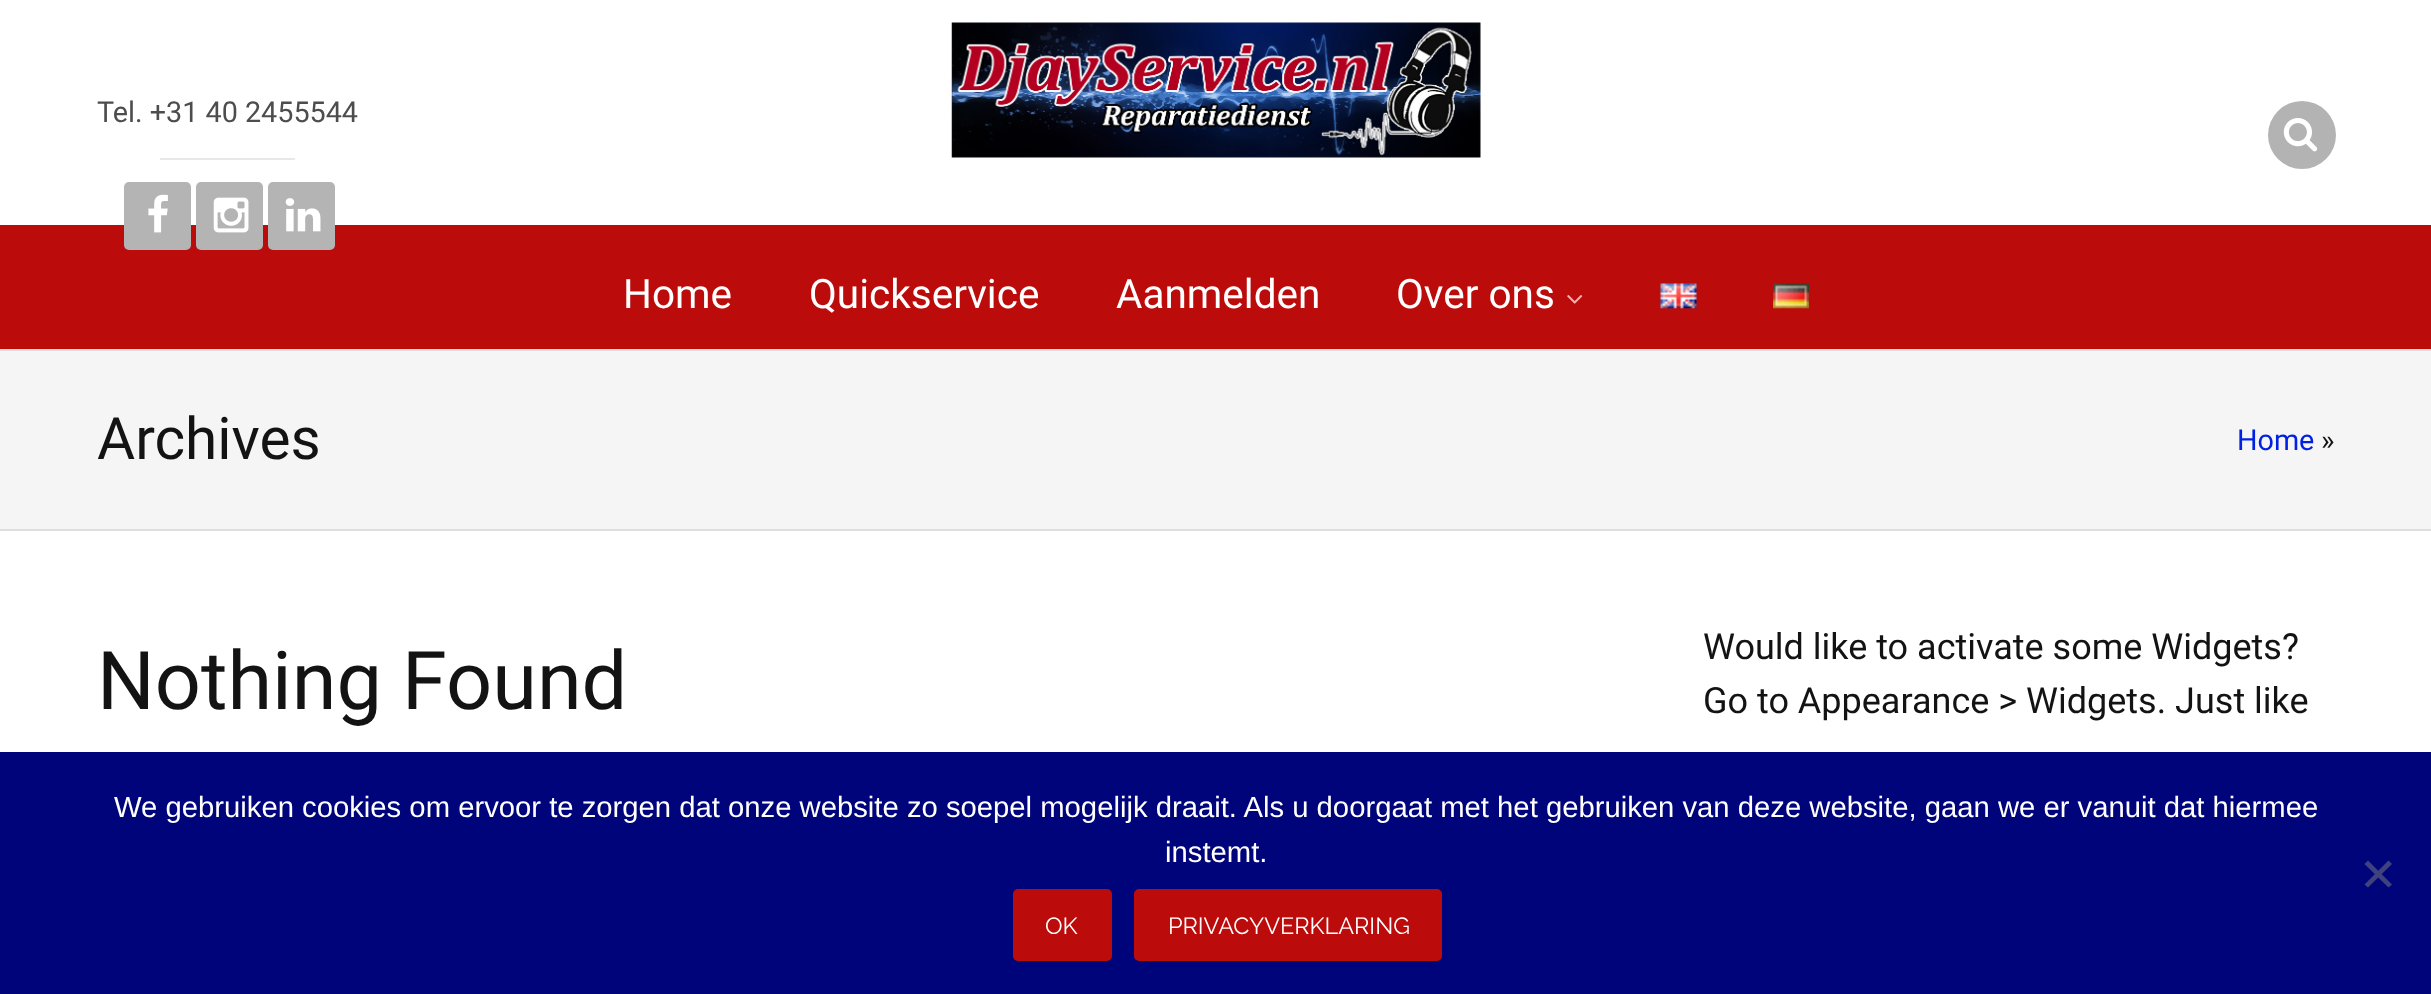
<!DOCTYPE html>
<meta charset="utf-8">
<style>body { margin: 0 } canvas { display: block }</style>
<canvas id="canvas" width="2431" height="994"></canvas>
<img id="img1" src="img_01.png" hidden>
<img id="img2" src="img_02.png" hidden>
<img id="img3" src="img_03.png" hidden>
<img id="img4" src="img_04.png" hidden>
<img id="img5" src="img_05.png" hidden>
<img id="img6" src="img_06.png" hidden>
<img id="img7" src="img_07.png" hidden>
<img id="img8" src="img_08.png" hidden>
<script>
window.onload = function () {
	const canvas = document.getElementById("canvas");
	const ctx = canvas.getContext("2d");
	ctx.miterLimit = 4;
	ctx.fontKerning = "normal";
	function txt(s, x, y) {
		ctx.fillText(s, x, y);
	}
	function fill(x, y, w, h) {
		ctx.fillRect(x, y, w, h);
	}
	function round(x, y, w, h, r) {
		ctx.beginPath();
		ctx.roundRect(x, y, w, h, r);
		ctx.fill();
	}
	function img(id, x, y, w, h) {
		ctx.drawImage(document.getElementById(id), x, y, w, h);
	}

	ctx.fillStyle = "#FFFFFF";
	fill(0, 0, 2431, 994);
	ctx.fillStyle = "#E8E8E8";
	fill(160, 158, 135, 2);
	ctx.fillStyle = "#BC0B0B";
	fill(0, 225, 2431, 124);
	ctx.fillStyle = "#B4B4B4";
	round(124, 182, 67, 68, 5);
	img("img1", 148, 194, 20, 39);
	round(196, 182, 67, 68, 5);
	img("img2", 213, 197, 36, 36);
	round(268, 182, 67, 68, 5);
	img("img3", 285, 198, 36, 34);
	img("img4", 951, 22, 530, 136);
	ctx.fillStyle = "#B3B3B3";
	ctx.beginPath();
	ctx.arc(2302, 135, 34, 0, Math.PI * 2);
	ctx.fill();
	img("img5", 2283, 118, 35, 34);
	img("img6", 1567, 295, 16, 9);
	img("img7", 1660, 283, 37, 26);
	img("img8", 1773, 283, 36, 26);
	ctx.fillStyle = "#F5F5F5";
	fill(0, 351, 2431, 178);
	ctx.fillStyle = "#DEDEDE";
	fill(0, 349, 2431, 2);
	fill(0, 529, 2431, 2);
	ctx.fillStyle = "#00047A";
	fill(0, 752, 2431, 242);
	ctx.fillStyle = "#40427D";
	ctx.beginPath();
	ctx.moveTo(2388.5, 860.5);
	ctx.lineTo(2392, 864);
	ctx.lineTo(2368, 887.5);
	ctx.lineTo(2364.5, 884.5);
	ctx.closePath();
	ctx.fill();
	ctx.beginPath();
	ctx.moveTo(2364.5, 864);
	ctx.lineTo(2368, 860.5);
	ctx.lineTo(2392, 884.5);
	ctx.lineTo(2388.5, 887.5);
	ctx.closePath();
	ctx.fill();
	ctx.fillStyle = "#BC0B0B";
	round(1013, 889, 99, 72, 5);
	round(1134, 889, 308, 72, 5);
	ctx.font = "28.75px Roboto";
	ctx.fillStyle = "#4D4D4D";
	txt("Tel. +31 40 2455544", 97, 122);
	ctx.font = "40.5px Roboto";
	ctx.fillStyle = "#FFFFFF";
	txt("Home", 623, 308);
	txt("Quickservice", 809, 308);
	txt("Aanmelden", 1116, 308);
	txt("Over ons", 1396, 308);
	ctx.font = "58.5px Roboto";
	ctx.fillStyle = "#131313";
	txt("Archives", 97, 459);
	ctx.font = "28.75px Roboto";
	ctx.fillStyle = "#0021E4";
	txt("Home", 2237, 450);
	ctx.fillStyle = "#131313";
	txt("»", 2321, 450);
	ctx.font = "81px Roboto";
	txt("Nothing Found", 97, 709);
	ctx.font = "36px Roboto";
	txt("Would like to activate some Widgets?", 1703, 659);
	txt("Go to Appearance > Widgets. Just like", 1703, 713);
	ctx.font = "29.25px Liberation Sans";
	ctx.fillStyle = "#FFFFFF";
	txt("We gebruiken cookies om ervoor te zorgen dat onze website zo soepel mogelijk draait. Als u doorgaat met het gebruiken van deze website, gaan we er vanuit dat hiermee", 114, 817);
	txt("instemt.", 1165, 862);
	ctx.font = "23.4px Raleway";
	txt("OK", 1045, 934);
	txt("PRIVACYVERKLARING", 1168, 934);
};
</script>
